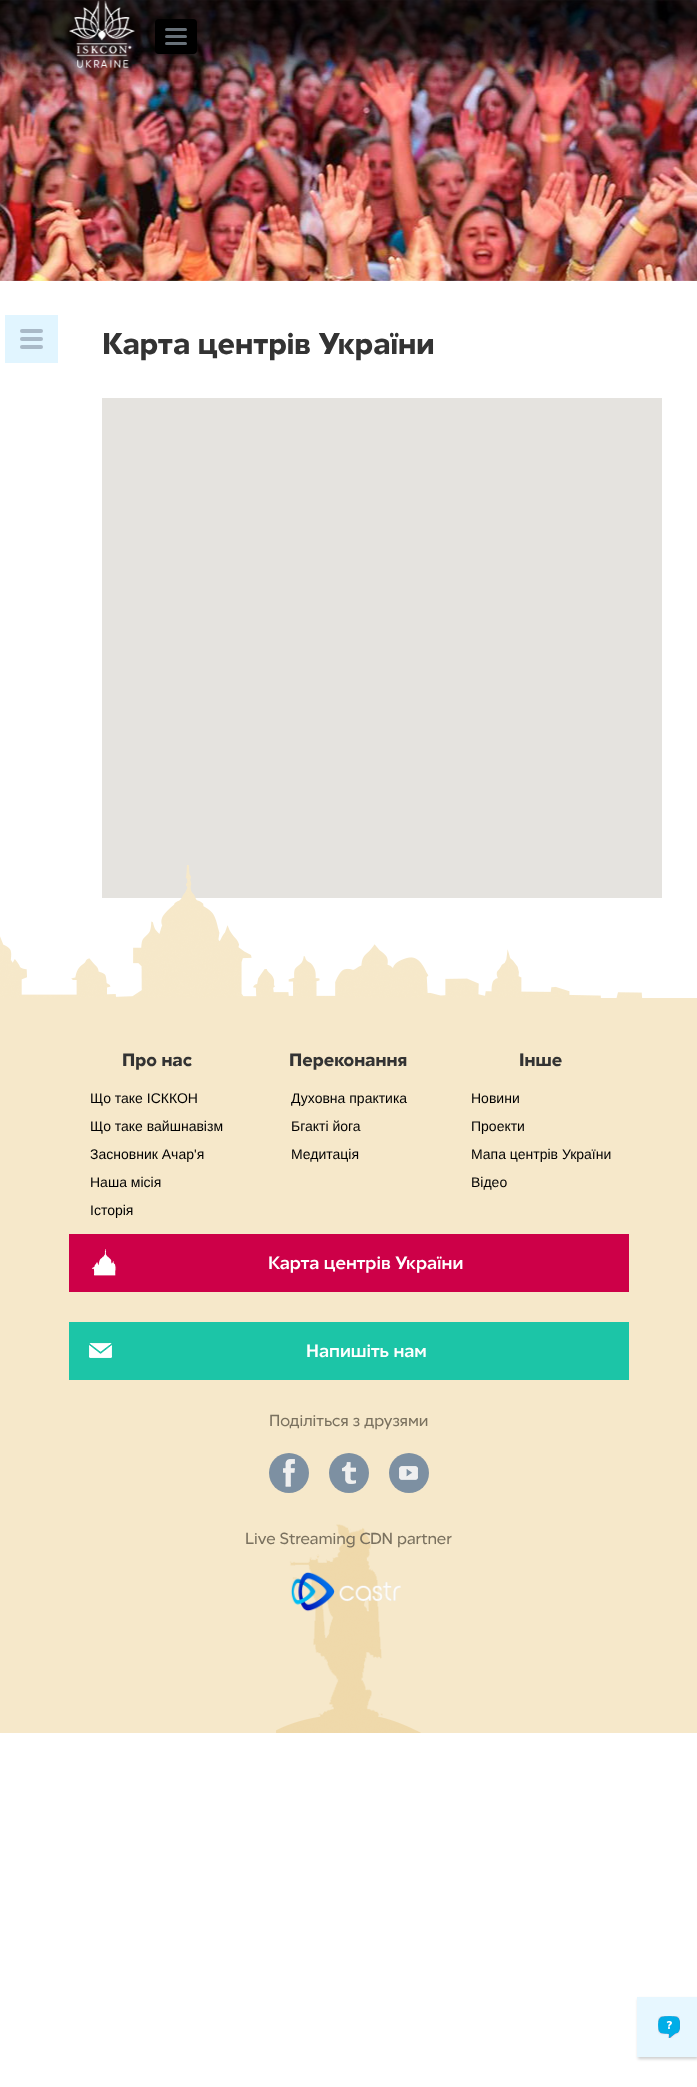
<!DOCTYPE html>
<meta charset="utf-8">
<style>body { margin: 0 } canvas { display: block }</style>
<canvas id="canvas" width="697" height="2087"></canvas>
<img id="img1" src="img_01.png" hidden>
<img id="img2" src="img_02.png" hidden>
<img id="img3" src="img_03.png" hidden>
<img id="img4" src="img_04.png" hidden>
<img id="img5" src="img_05.png" hidden>
<img id="img6" src="img_06.png" hidden>
<img id="img7" src="img_07.png" hidden>
<img id="img8" src="img_08.png" hidden>
<img id="img9" src="img_09.png" hidden>
<img id="img10" src="img_10.png" hidden>
<img id="img11" src="img_11.png" hidden>
<img id="img12" src="img_12.png" hidden>
<script>
window.onload = function () {
	const canvas = document.getElementById("canvas");
	const ctx = canvas.getContext("2d");
	ctx.miterLimit = 4;
	ctx.fontKerning = "normal";
	function txt(s, x, y) {
		ctx.fillText(s, x, y);
	}
	function fill(x, y, w, h) {
		ctx.fillRect(x, y, w, h);
	}
	function round(x, y, w, h, r) {
		ctx.beginPath();
		ctx.roundRect(x, y, w, h, r);
		ctx.fill();
	}
	function img(id, x, y, w, h) {
		ctx.drawImage(document.getElementById(id), x, y, w, h);
	}

	ctx.fillStyle = "#FFFFFF";
	fill(0, 0, 697, 2087);
	img("img1", 0, 0, 697, 281);
	img("img2", 0, 0, 697, 87);
	img("img3", 69, 0, 66, 68);
	ctx.fillStyle = "#000000";
	round(155, 19, 42, 35, 4);
	ctx.fillStyle = "#687179";
	round(165, 28, 22, 3, 1.5);
	round(165, 35, 22, 3, 1.5);
	round(165, 42, 22, 3, 1.5);
	ctx.fillStyle = "#E1F5FF";
	fill(5, 315, 53, 48);
	ctx.fillStyle = "#A9B9C7";
	round(20, 329, 23, 4, 2);
	round(20, 337, 23, 4, 2);
	round(20, 345, 23, 4, 2);
	ctx.fillStyle = "#E5E3DF";
	fill(102, 398, 560, 500);
	ctx.fillStyle = "#F6E8CA";
	fill(0, 998, 697, 735);
	img("img4", 276, 1524, 145, 209);
	img("img5", 0, 865, 643, 133);
	ctx.fillStyle = "#CD0048";
	fill(69, 1234, 560, 58);
	img("img6", 91, 1249, 26, 27);
	ctx.fillStyle = "#1CC5A7";
	fill(69, 1322, 560, 58);
	img("img7", 89, 1343, 23, 15);
	ctx.fillStyle = "#7D90A2";
	ctx.beginPath();
	ctx.arc(289, 1473, 20, 0, Math.PI * 2);
	ctx.fill();
	img("img8", 283, 1459, 12, 28);
	ctx.beginPath();
	ctx.arc(349, 1473, 20, 0, Math.PI * 2);
	ctx.fill();
	img("img9", 342, 1462, 14, 22);
	ctx.beginPath();
	ctx.arc(409, 1473, 20, 0, Math.PI * 2);
	ctx.fill();
	img("img10", 399, 1466, 19, 14);
	img("img11", 291, 1572, 110, 40);
	ctx.fillStyle = "rgba(7, 8, 8, 0.2)";
	ctx.filter = "blur(1.5px)";
	ctx.beginPath();
	ctx.rect(638, 1999, 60, 60);
	ctx.fill();
	ctx.filter = "none";
	ctx.fillStyle = "#E7F7FF";
	fill(637, 1997, 60, 60);
	img("img12", 658, 2016, 22, 22);
	ctx.font = "bold 30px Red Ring";
	ctx.fillStyle = "#333333";
	txt("Карта центрів України", 102, 354);
	ctx.font = "bold 18px Red Ring";
	txt("Про нас", 122, 1066);
	ctx.font = "14px Liberation Sans";
	ctx.fillStyle = "#000000";
	txt("Що таке ІСККОН", 90, 1103);
	txt("Що таке вайшнавізм", 90, 1131);
	txt("Засновник Ачар'я", 90, 1159);
	txt("Наша місія", 90, 1187);
	txt("Історія", 90, 1215);
	ctx.font = "bold 18px Red Ring";
	ctx.fillStyle = "#333333";
	txt("Переконання", 289, 1066);
	ctx.font = "14px Liberation Sans";
	ctx.fillStyle = "#000000";
	txt("Духовна практика", 291, 1103);
	txt("Бгакті йога", 291, 1131);
	txt("Медитація", 291, 1159);
	ctx.font = "bold 18px Red Ring";
	ctx.fillStyle = "#333333";
	txt("Інше", 519, 1066);
	ctx.font = "14px Liberation Sans";
	ctx.fillStyle = "#000000";
	txt("Новини", 471, 1103);
	txt("Проекти", 471, 1131);
	txt("Мапа центрів України", 471, 1159);
	txt("Відео", 471, 1187);
	ctx.font = "500 18px Red Ring";
	ctx.fillStyle = "#FFFFFF";
	txt("Карта центрів України", 268, 1269);
	txt("Напишіть нам", 306, 1357);
	ctx.font = "16px Red Ring";
	ctx.fillStyle = "#7A715F";
	txt("Поділіться з друзями", 269, 1426);
	txt("Live Streaming CDN partner", 245, 1544);
};
</script>
